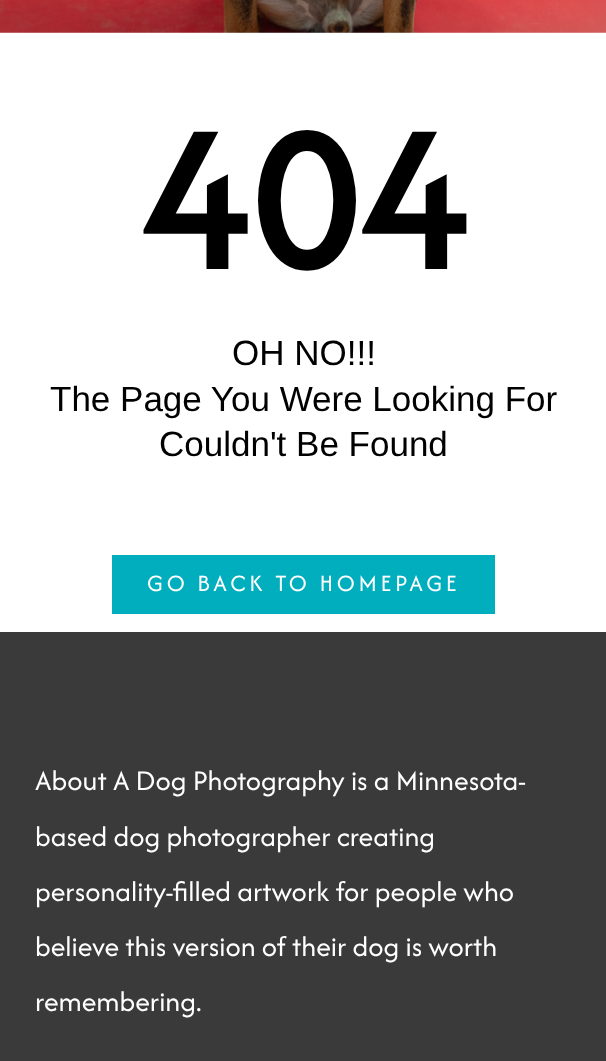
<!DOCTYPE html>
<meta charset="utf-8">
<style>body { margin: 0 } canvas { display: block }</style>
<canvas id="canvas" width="606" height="1061"></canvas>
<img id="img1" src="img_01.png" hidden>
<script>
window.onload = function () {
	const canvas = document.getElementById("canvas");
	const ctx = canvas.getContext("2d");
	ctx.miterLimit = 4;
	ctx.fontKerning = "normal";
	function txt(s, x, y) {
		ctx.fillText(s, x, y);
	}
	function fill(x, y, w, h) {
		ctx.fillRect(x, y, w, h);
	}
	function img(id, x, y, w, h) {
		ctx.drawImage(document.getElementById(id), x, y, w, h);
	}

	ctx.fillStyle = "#FFFFFF";
	fill(0, 0, 606, 1061);
	img("img1", 0, 0, 606, 33);
	ctx.fillStyle = "#01AEBE";
	fill(112, 555, 383, 59);
	ctx.fillStyle = "#3A3A3A";
	fill(0, 632, 606, 429);
	ctx.font = "bold 210px Afacad Flux";
	ctx.fillStyle = "#000000";
	txt("404", 140, 269);
	ctx.font = "35px Liberation Sans";
	txt("OH NO!!!", 232, 365);
	txt("The Page You Were Looking For", 50, 411);
	txt("Couldn't Be Found", 159, 456);
	ctx.letterSpacing = "3.7px";
	ctx.font = "24.5px Afacad Flux";
	ctx.fillStyle = "#FFFFFF";
	txt("GO BACK TO HOMEPAGE", 147, 591);
	ctx.letterSpacing = "0px";
	ctx.font = "29.75px Afacad Flux";
	txt("About A Dog Photography is a Minnesota-", 35, 790);
	txt("based dog photographer creating", 35, 846);
	txt("personality-filled artwork for people who", 35, 901);
	txt("believe this version of their dog is worth", 35, 956);
	txt("remembering.", 35, 1011);
};
</script>
